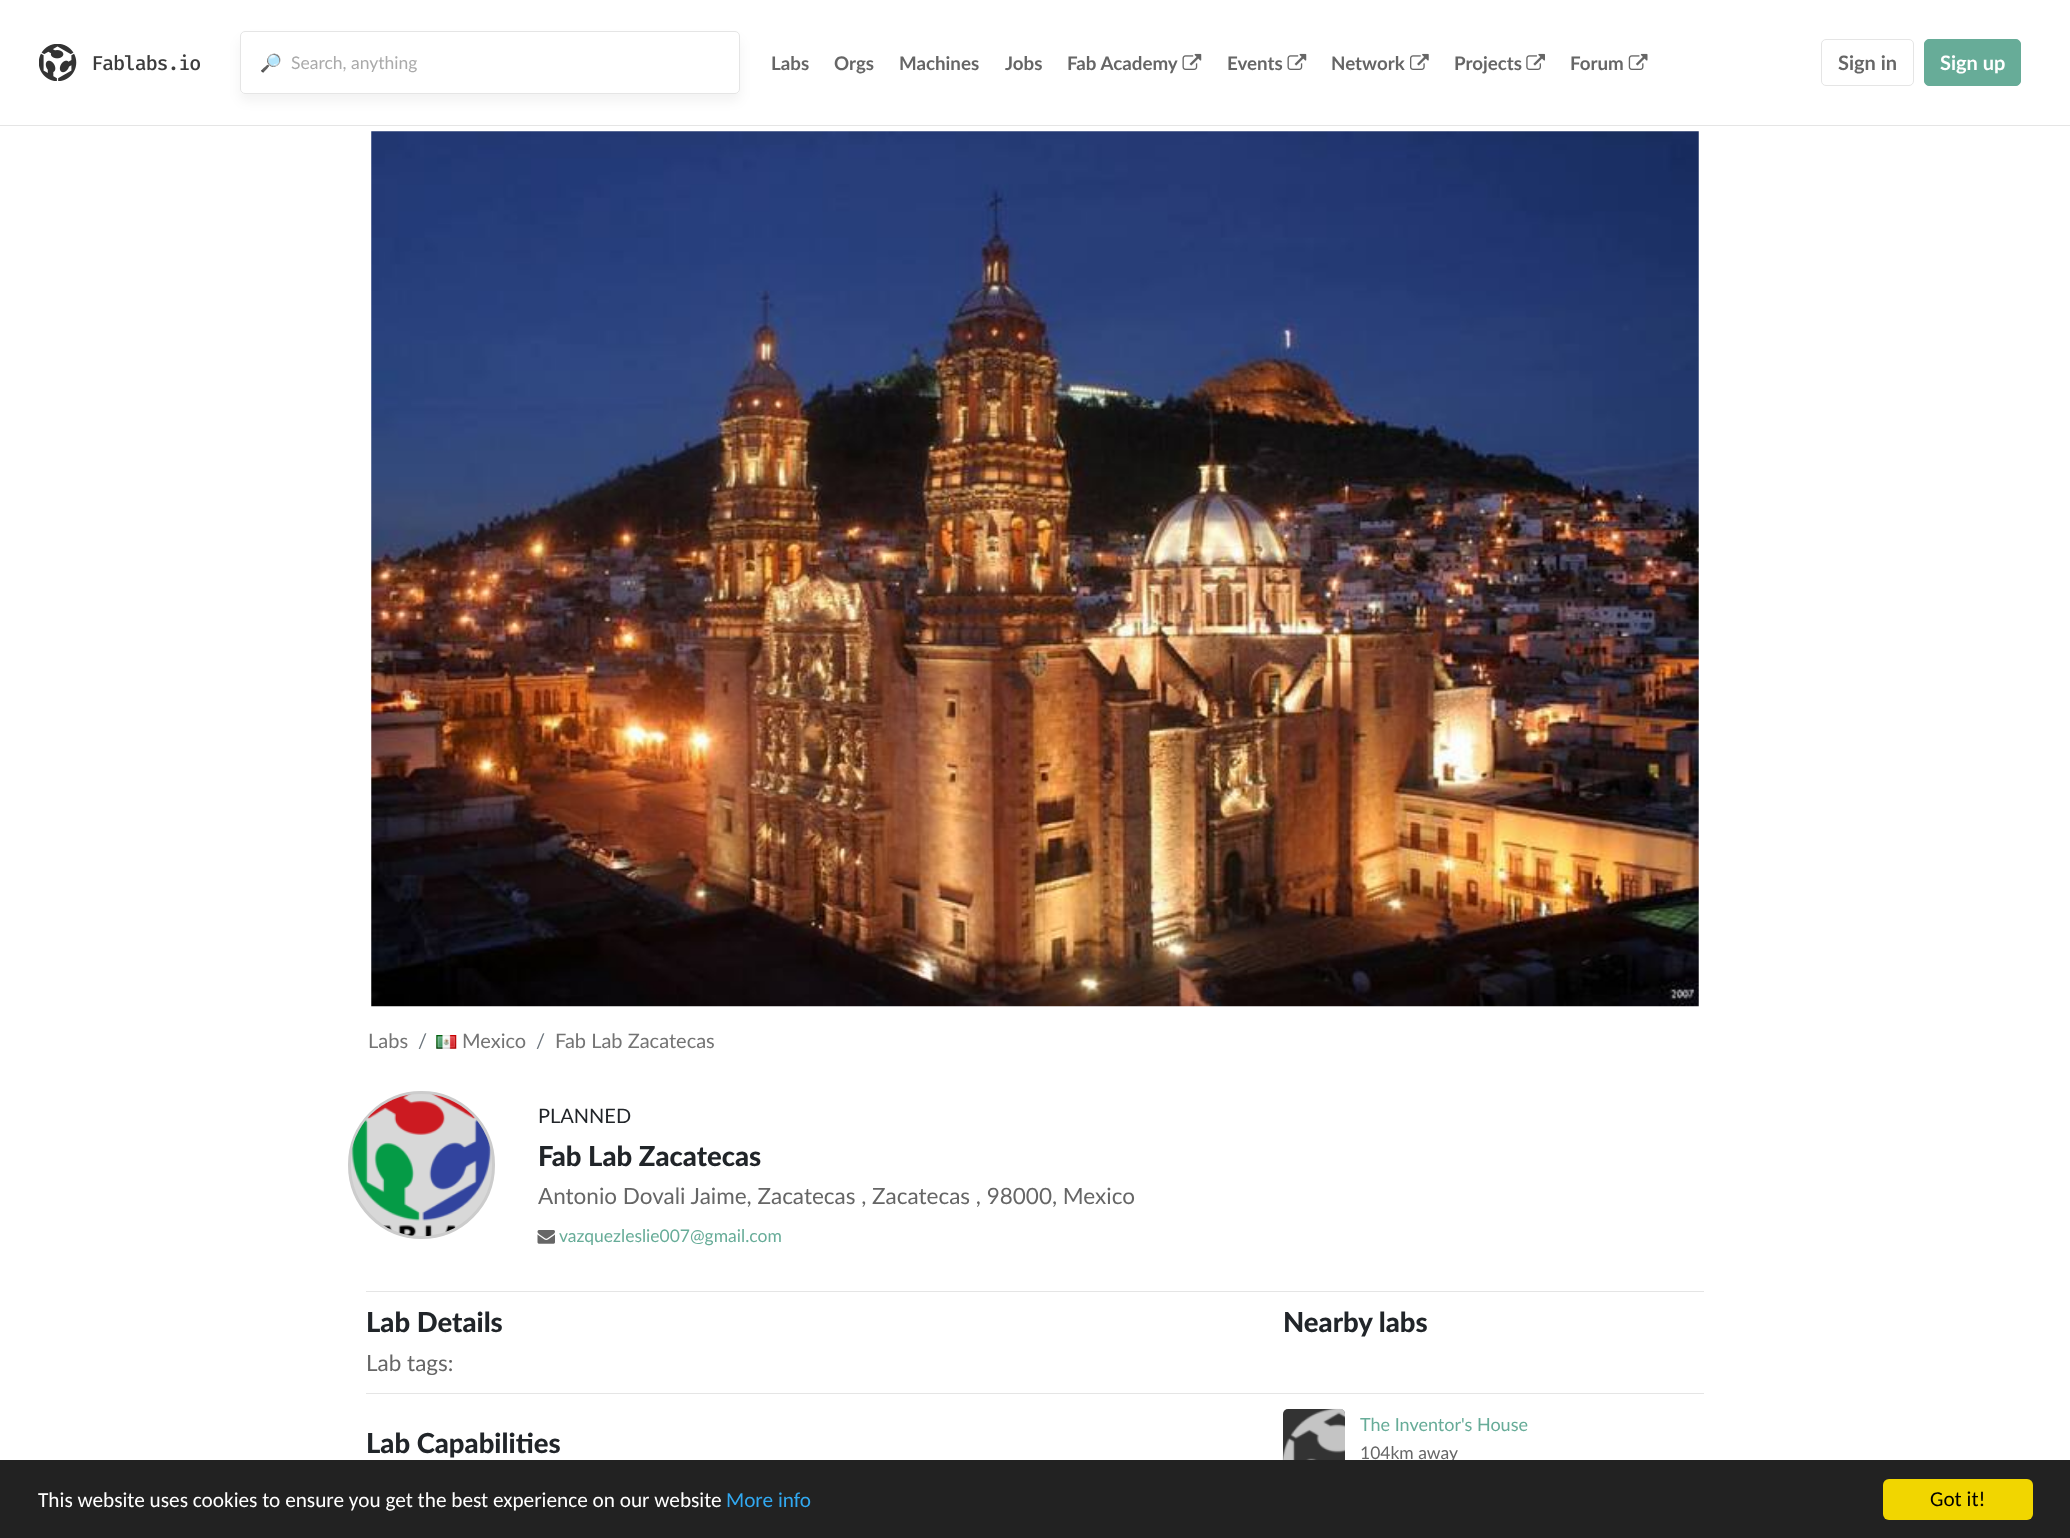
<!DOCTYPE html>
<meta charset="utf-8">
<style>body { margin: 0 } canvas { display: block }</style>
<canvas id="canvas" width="2070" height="1538"></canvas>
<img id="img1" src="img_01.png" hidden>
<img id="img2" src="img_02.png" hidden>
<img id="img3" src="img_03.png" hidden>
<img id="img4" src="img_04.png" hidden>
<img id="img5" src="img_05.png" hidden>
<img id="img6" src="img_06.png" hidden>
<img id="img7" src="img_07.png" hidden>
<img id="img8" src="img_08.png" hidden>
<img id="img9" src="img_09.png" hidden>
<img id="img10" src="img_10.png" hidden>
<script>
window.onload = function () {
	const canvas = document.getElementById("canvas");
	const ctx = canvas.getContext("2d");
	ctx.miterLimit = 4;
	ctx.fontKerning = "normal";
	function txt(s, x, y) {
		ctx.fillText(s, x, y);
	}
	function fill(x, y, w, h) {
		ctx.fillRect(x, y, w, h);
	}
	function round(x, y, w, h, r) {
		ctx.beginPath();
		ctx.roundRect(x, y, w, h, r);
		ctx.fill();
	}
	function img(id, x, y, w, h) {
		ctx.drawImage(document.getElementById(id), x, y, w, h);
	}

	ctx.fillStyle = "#FFFFFF";
	fill(0, 0, 2070, 1538);
	ctx.fillStyle = "#E5E5E5";
	fill(0, 125, 2070, 1);
	img("img1", 39, 44, 161, 37);
	ctx.save();
	ctx.beginPath();
	ctx.moveTo(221, 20);
	ctx.lineTo(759, 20);
	ctx.lineTo(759, 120);
	ctx.lineTo(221, 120);
	ctx.closePath();
	ctx.moveTo(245, 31);
	ctx.lineTo(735, 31);
	ctx.bezierCurveTo(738, 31, 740, 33, 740, 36);
	ctx.lineTo(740, 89);
	ctx.bezierCurveTo(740, 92, 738, 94, 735, 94);
	ctx.lineTo(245, 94);
	ctx.bezierCurveTo(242, 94, 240, 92, 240, 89);
	ctx.lineTo(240, 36);
	ctx.bezierCurveTo(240, 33, 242, 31, 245, 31);
	ctx.closePath();
	ctx.clip("evenodd");
	ctx.fillStyle = "rgba(0, 0, 0, 0.05)";
	ctx.filter = "blur(6px)";
	ctx.beginPath();
	ctx.roundRect(240, 39, 500, 62, 5);
	ctx.fill();
	ctx.filter = "none";
	ctx.restore();
	ctx.beginPath();
	ctx.roundRect(240.5, 31.5, 499, 62, 4.5);
	ctx.strokeStyle = "#E5E5E5";
	ctx.stroke();
	img("img2", 1182, 53, 20, 17);
	img("img2", 1287, 53, 20, 17);
	img("img3", 1410, 53, 19, 17);
	img("img4", 1526, 53, 19, 17);
	img("img5", 1628, 53, 20, 17);
	ctx.beginPath();
	ctx.roundRect(1821.5, 39.5, 92, 46, 4.5);
	ctx.stroke();
	ctx.fillStyle = "#67AC98";
	ctx.beginPath();
	ctx.roundRect(1924.5, 39.5, 96, 46, 4.5);
	ctx.fill();
	ctx.strokeStyle = "#67AC98";
	ctx.stroke();
	img("img6", 371, 131, 1328, 876);
	img("img7", 436, 1035, 21, 14);
	ctx.fillStyle = "#D8D8D8";
	ctx.beginPath();
	ctx.roundRect(349.5, 1092.5, 144, 145, 72);
	ctx.fill();
	ctx.strokeStyle = "#CCCCCC";
	ctx.lineWidth = 3;
	ctx.stroke();
	img("img8", 351, 1094, 140, 142);
	img("img9", 537, 1230, 18, 14);
	ctx.fillStyle = "#E5E5E5";
	fill(366, 1291, 1338, 1);
	fill(366, 1393, 1338, 1);
	ctx.fillStyle = "#333333";
	round(1283, 1409, 62, 62, 5);
	img("img10", 1282, 1408, 63, 52);
	ctx.font = "17.5px Noto Color Emoji";
	ctx.fillStyle = "#AAAAAA";
	txt("🔎", 260, 69);
	ctx.font = "17.5px Lato";
	txt("Search, anything", 291, 69);
	ctx.font = "bold 18.75px Lato";
	ctx.fillStyle = "#666666";
	txt("Labs", 771, 70);
	txt("Orgs", 834, 70);
	txt("Machines", 899, 70);
	txt("Jobs", 1005, 70);
	txt("Fab Academy", 1067, 70);
	txt("Events", 1227, 70);
	txt("Network", 1331, 70);
	txt("Projects", 1454, 70);
	txt("Forum", 1570, 70);
	ctx.font = "bold 20px Lato";
	txt("Sign in", 1838, 70);
	ctx.fillStyle = "#FFFFFF";
	txt("Sign up", 1940, 70);
	ctx.font = "20px Lato";
	ctx.fillStyle = "#747474";
	txt("Labs", 368, 1048);
	ctx.fillStyle = "#6C757D";
	txt("/", 418, 1048);
	ctx.fillStyle = "#747474";
	txt("Mexico", 462, 1048);
	ctx.fillStyle = "#6C757D";
	txt("/", 536, 1048);
	ctx.fillStyle = "#747474";
	txt("Fab Lab Zacatecas", 555, 1048);
	ctx.fillStyle = "#212529";
	txt("PLANNED", 538, 1123);
	ctx.font = "900 27.5px Lato";
	txt("Fab Lab Zacatecas", 538, 1166);
	ctx.font = "22.5px Lato";
	ctx.fillStyle = "#666666";
	txt("Antonio Dovali Jaime, Zacatecas , Zacatecas , 98000, Mexico", 538, 1204);
	ctx.font = "17.5px Lato";
	ctx.fillStyle = "#67AC98";
	txt("vazquezleslie007@gmail.com", 559, 1242);
	ctx.font = "900 27.5px Lato";
	ctx.fillStyle = "#212529";
	txt("Lab Details", 366, 1332);
	ctx.font = "22.5px Lato";
	ctx.fillStyle = "#666666";
	txt("Lab tags:", 366, 1371);
	ctx.font = "900 27.5px Lato";
	ctx.fillStyle = "#212529";
	txt("Nearby labs", 1283, 1332);
	txt("Lab Capabilities", 366, 1453);
	ctx.font = "18px Lato";
	ctx.fillStyle = "#67AC98";
	txt("The Inventor's House", 1360, 1431);
	ctx.font = "17.5px Lato";
	ctx.fillStyle = "#666666";
	txt("104km away", 1360, 1459);
	ctx.fillStyle = "#222222";
	fill(0, 1460, 2070, 78);
	ctx.font = "21.25px Carlito";
	ctx.fillStyle = "#FFFFFF";
	txt("This website uses cookies to ensure you get the best experience on our website", 38, 1507);
	ctx.fillStyle = "#31A8F0";
	txt("More info", 726, 1507);
	ctx.fillStyle = "#F1D600";
	round(1883, 1479, 150, 41, 6);
	ctx.fillStyle = "#000000";
	txt("Got it!", 1930, 1506);
};
</script>
